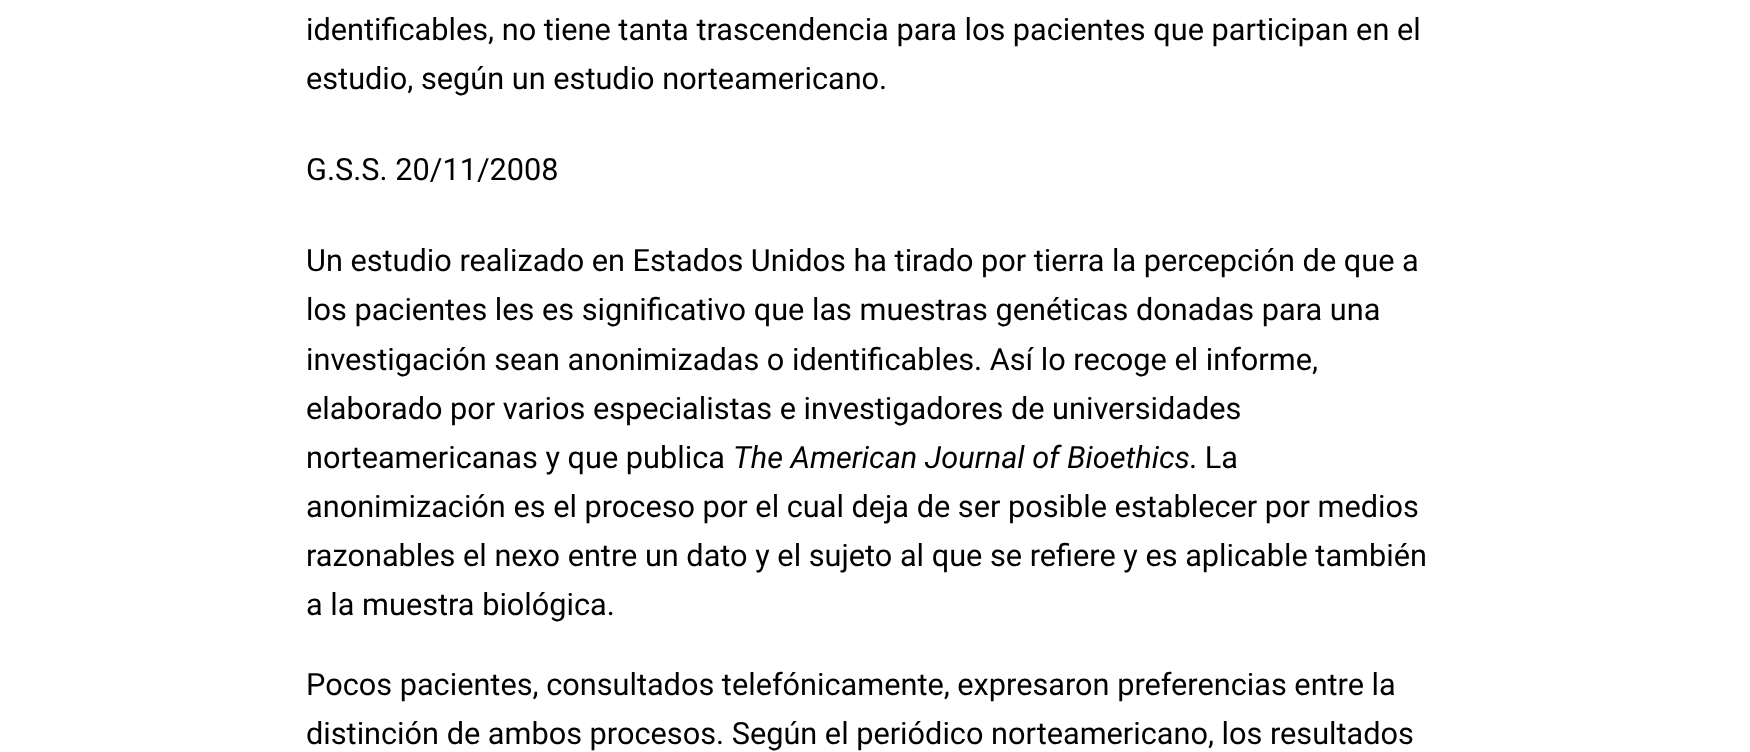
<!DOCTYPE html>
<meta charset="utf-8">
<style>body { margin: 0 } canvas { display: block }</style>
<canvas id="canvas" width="1750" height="752"></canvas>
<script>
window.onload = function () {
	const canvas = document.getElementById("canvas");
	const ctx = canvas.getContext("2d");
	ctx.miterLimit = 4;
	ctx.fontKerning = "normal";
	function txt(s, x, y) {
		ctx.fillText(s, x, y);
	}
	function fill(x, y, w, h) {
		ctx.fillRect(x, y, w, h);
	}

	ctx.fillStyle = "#FFFFFF";
	fill(0, 0, 1750, 752);
	ctx.font = "30.7px Roboto";
	ctx.fillStyle = "#000000";
	txt("identificables, no tiene tanta trascendencia para los pacientes que participan en el", 306, 40);
	txt("estudio, según un estudio norteamericano.", 306, 89);
	txt("G.S.S. 20/11/2008", 306, 180);
	txt("Un estudio realizado en Estados Unidos ha tirado por tierra la percepción de que a", 306, 271);
	txt("los pacientes les es significativo que las muestras genéticas donadas para una", 306, 320);
	txt("investigación sean anonimizadas o identificables. Así lo recoge el informe,", 306, 370);
	txt("elaborado por varios especialistas e investigadores de universidades", 306, 419);
	txt("norteamericanas y que publica", 306, 468);
	ctx.font = "italic 30.7px Roboto";
	txt("The American Journal of Bioethics", 733, 468);
	ctx.font = "30.7px Roboto";
	txt(". La", 1189, 468);
	txt("anonimización es el proceso por el cual deja de ser posible establecer por medios", 306, 517);
	txt("razonables el nexo entre un dato y el sujeto al que se refiere y es aplicable también", 306, 566);
	txt("a la muestra biológica.", 306, 615);
	txt("Pocos pacientes, consultados telefónicamente, expresaron preferencias entre la", 306, 695);
	txt("distinción de ambos procesos. Según el periódico norteamericano, los resultados", 306, 744);
};
</script>
